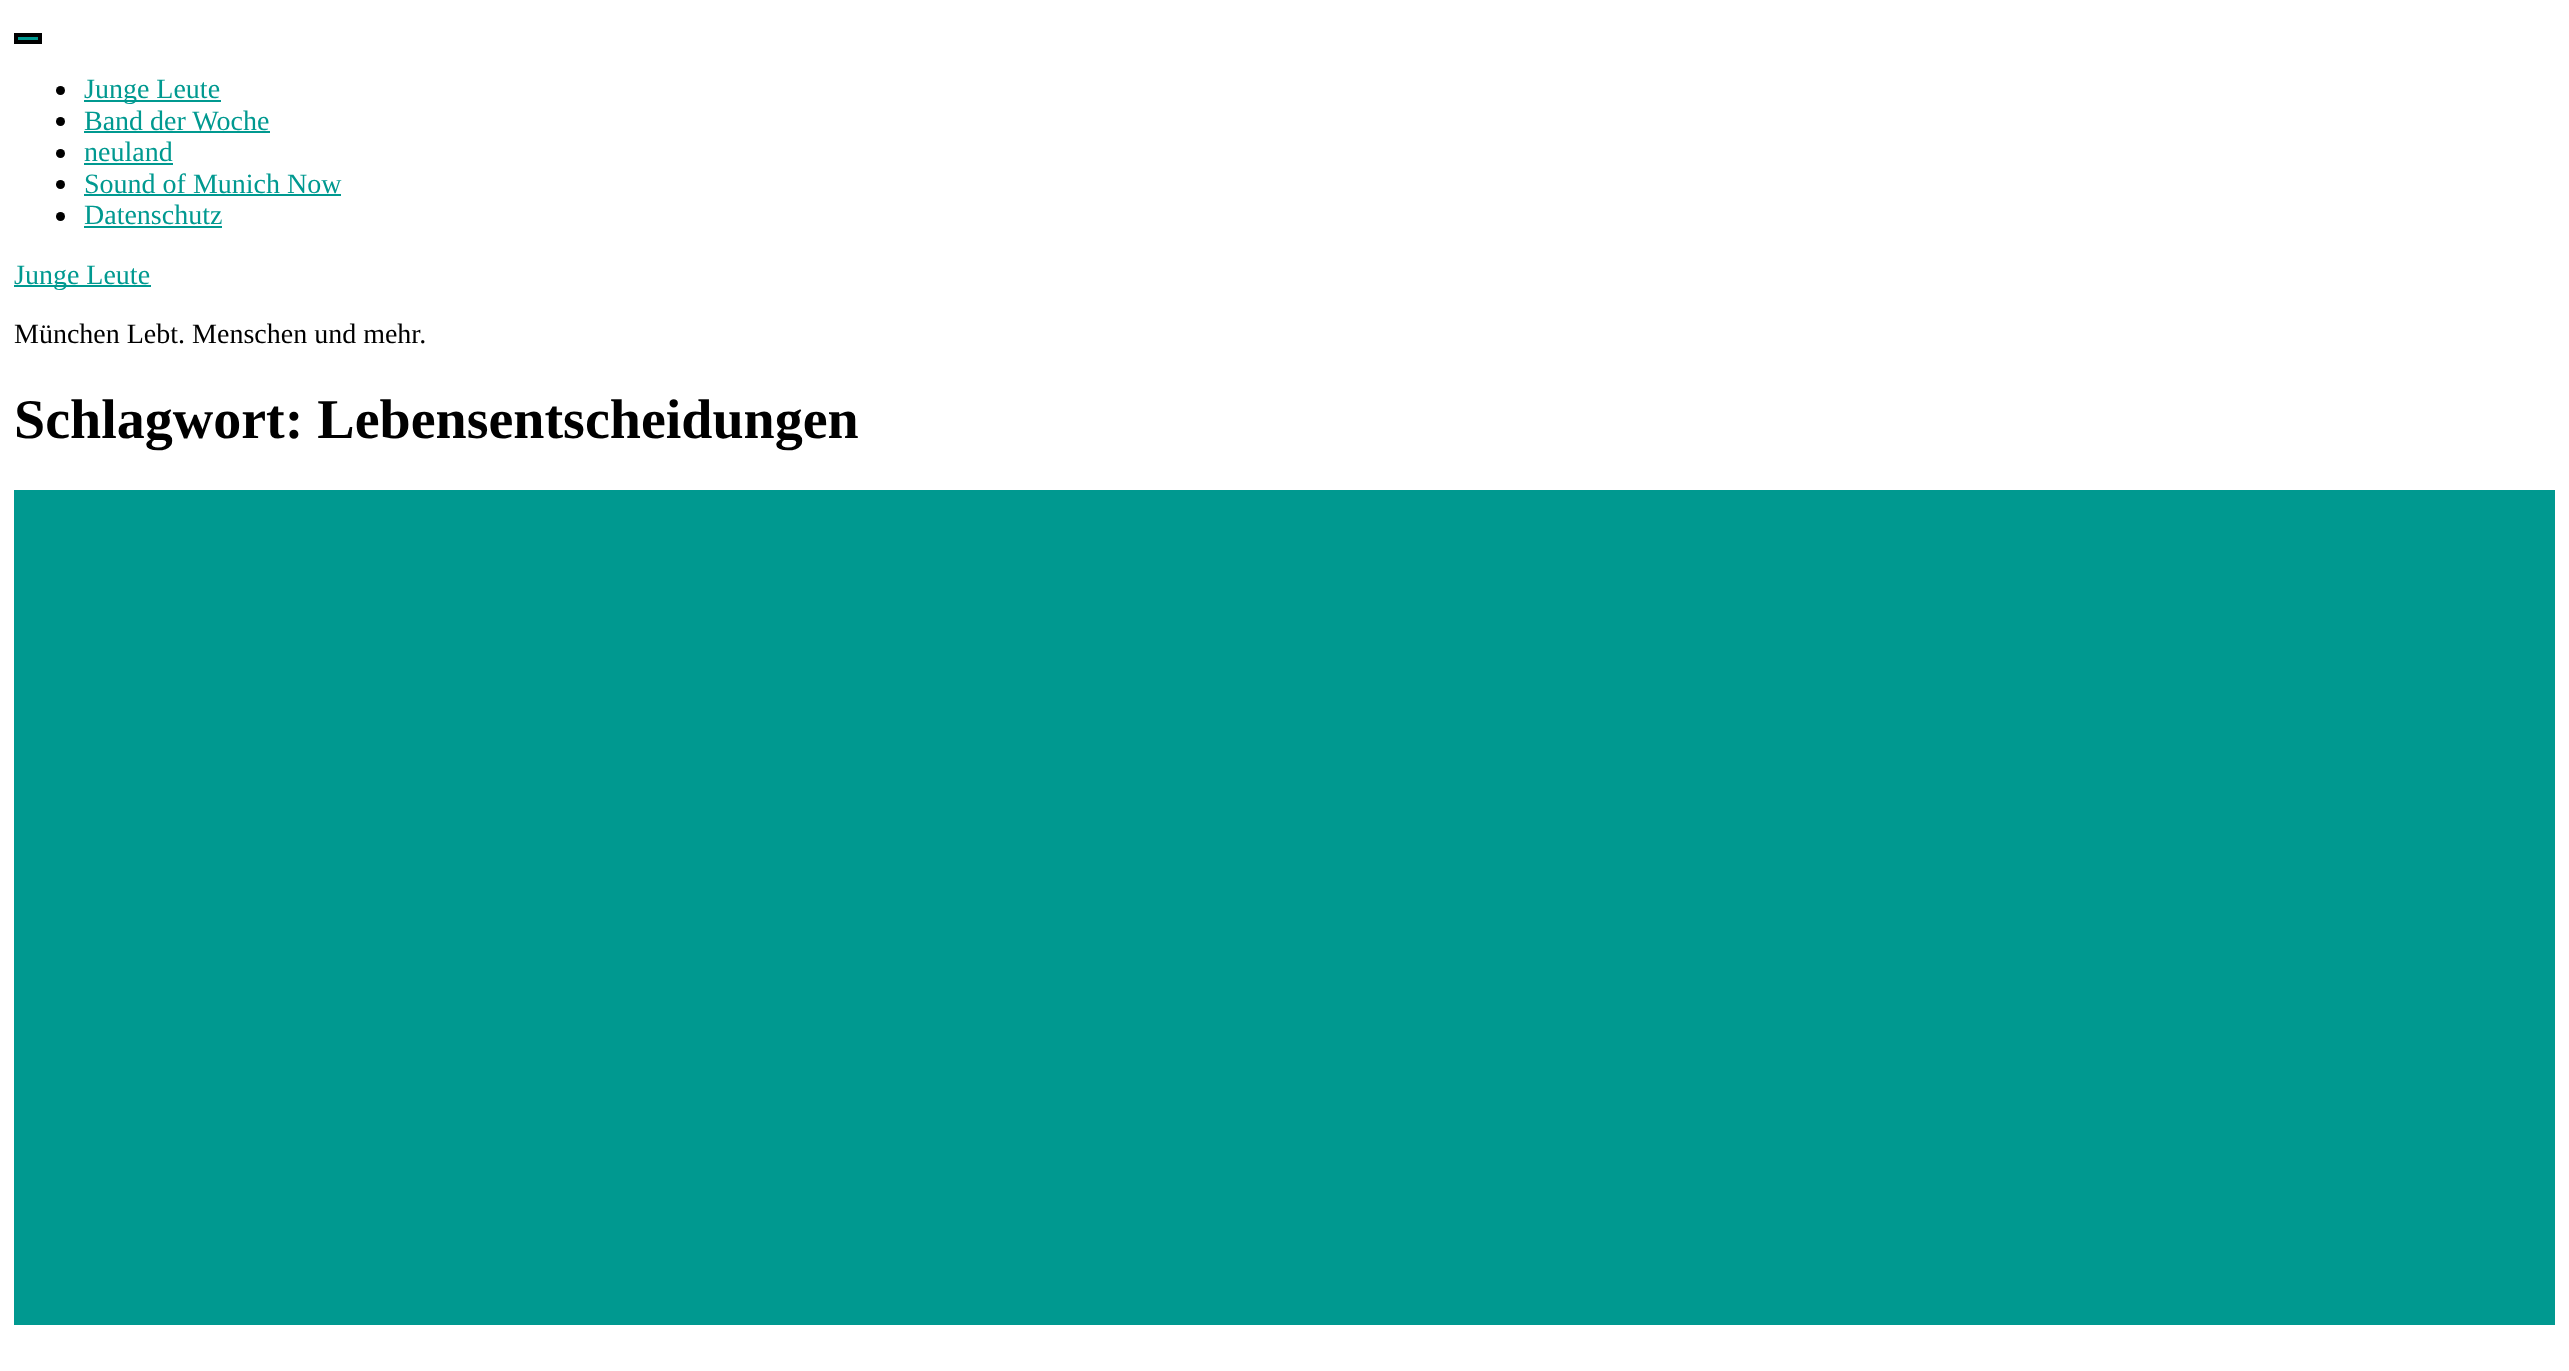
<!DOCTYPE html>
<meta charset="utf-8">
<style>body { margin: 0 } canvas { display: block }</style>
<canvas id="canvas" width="2569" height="1371"></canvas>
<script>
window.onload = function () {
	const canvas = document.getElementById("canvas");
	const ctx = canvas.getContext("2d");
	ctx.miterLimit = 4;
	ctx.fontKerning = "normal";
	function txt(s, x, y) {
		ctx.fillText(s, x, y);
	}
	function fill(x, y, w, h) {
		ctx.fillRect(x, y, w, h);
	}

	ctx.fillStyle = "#FFFFFF";
	fill(0, 0, 2569, 1371);
	ctx.fillStyle = "#009990";
	ctx.beginPath();
	ctx.rect(16, 35, 24, 7);
	ctx.fill();
	ctx.strokeStyle = "#000000";
	ctx.lineWidth = 4;
	ctx.stroke();
	ctx.fillStyle = "#000000";
	ctx.beginPath();
	ctx.arc(60.5, 90.5, 4.5, 0, Math.PI * 2);
	ctx.fill();
	ctx.fillStyle = "#009990";
	fill(84, 100, 137, 2);
	ctx.fillStyle = "#000000";
	ctx.beginPath();
	ctx.arc(60.5, 121.5, 4.5, 0, Math.PI * 2);
	ctx.fill();
	ctx.fillStyle = "#009990";
	fill(84, 131, 186, 2);
	ctx.fillStyle = "#000000";
	ctx.beginPath();
	ctx.arc(60.5, 153.5, 4.5, 0, Math.PI * 2);
	ctx.fill();
	ctx.fillStyle = "#009990";
	fill(84, 163, 89, 2);
	ctx.fillStyle = "#000000";
	ctx.beginPath();
	ctx.arc(60.5, 184.5, 4.5, 0, Math.PI * 2);
	ctx.fill();
	ctx.fillStyle = "#009990";
	fill(84, 194, 257, 2);
	ctx.fillStyle = "#000000";
	ctx.beginPath();
	ctx.arc(60.5, 216.5, 4.5, 0, Math.PI * 2);
	ctx.fill();
	ctx.fillStyle = "#009990";
	fill(84, 226, 138, 2);
	fill(14, 285, 137, 2);
	fill(14, 490, 2541, 835);
	ctx.font = "28px Liberation Serif";
	txt("Junge Leute", 84, 98);
	txt("Band der Woche", 84, 130);
	txt("neuland", 84, 161);
	txt("Sound of Munich Now", 84, 193);
	txt("Datenschutz", 84, 224);
	txt("Junge Leute", 14, 284);
	ctx.fillStyle = "#000000";
	txt("München Lebt. Menschen und mehr.", 14, 343);
	ctx.font = "bold 56px Liberation Serif";
	txt("Schlagwort: Lebensentscheidungen", 14, 438);
};
</script>
